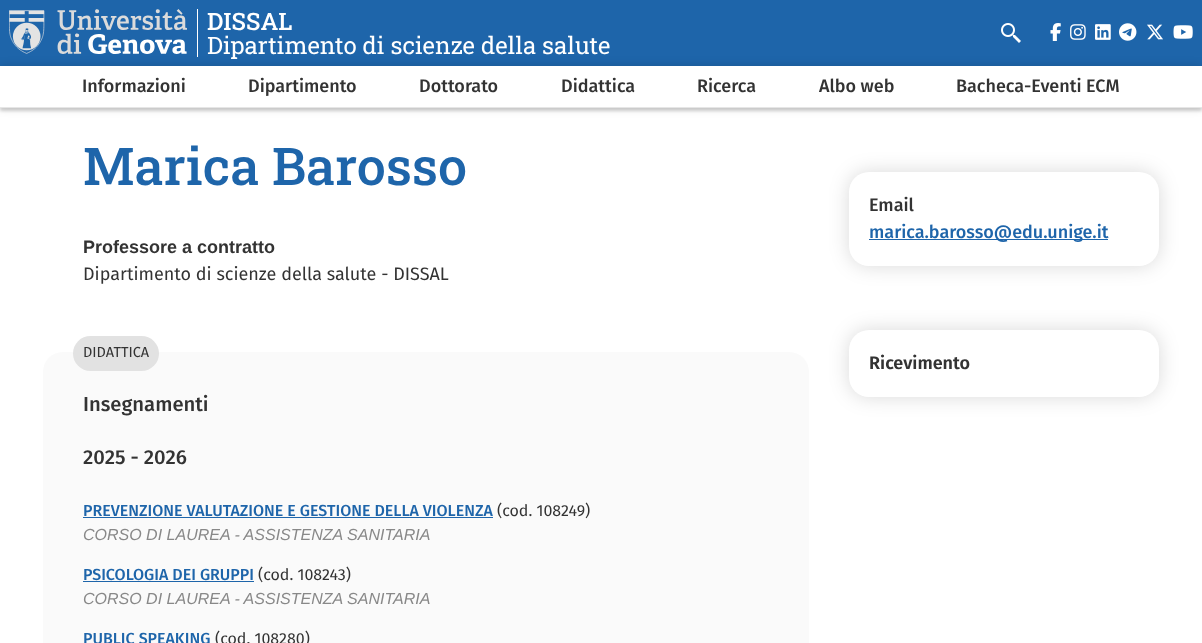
<!DOCTYPE html>
<meta charset="utf-8">
<style>body { margin: 0 } canvas { display: block }</style>
<canvas id="canvas" width="1202" height="643"></canvas>
<img id="img1" src="img_01.png" hidden>
<img id="img2" src="img_02.png" hidden>
<img id="img3" src="img_03.png" hidden>
<img id="img4" src="img_04.png" hidden>
<img id="img5" src="img_05.png" hidden>
<img id="img6" src="img_06.png" hidden>
<img id="img7" src="img_07.png" hidden>
<img id="img8" src="img_08.png" hidden>
<script>
window.onload = function () {
	const canvas = document.getElementById("canvas");
	const ctx = canvas.getContext("2d");
	ctx.miterLimit = 4;
	ctx.fontKerning = "normal";
	function txt(s, x, y) {
		ctx.fillText(s, x, y);
	}
	function fill(x, y, w, h) {
		ctx.fillRect(x, y, w, h);
	}
	function round(x, y, w, h, r) {
		ctx.beginPath();
		ctx.roundRect(x, y, w, h, r);
		ctx.fill();
	}
	function img(id, x, y, w, h) {
		ctx.drawImage(document.getElementById(id), x, y, w, h);
	}

	ctx.fillStyle = "#FFFFFF";
	fill(0, 0, 1202, 643);
	ctx.fillStyle = "#1E65AA";
	fill(0, 0, 1202, 66);
	img("img1", 9, 9, 178, 45);
	ctx.fillStyle = "#FFFFFF";
	fill(197, 9, 1, 48);
	img("img2", 1001, 23, 20, 20);
	img("img3", 1050, 23, 11, 18);
	img("img4", 1070, 24, 16, 16);
	img("img5", 1095, 24, 16, 16);
	img("img6", 1119, 23, 18, 18);
	img("img7", 1147, 24, 16, 16);
	img("img8", 1173, 25, 20, 14);
	ctx.fillStyle = "rgba(0, 0, 0, 0.15)";
	ctx.filter = "blur(1.5px)";
	ctx.beginPath();
	ctx.rect(0, 69, 1202, 42);
	ctx.fill();
	ctx.filter = "none";
	ctx.filter = "blur(5px)";
	ctx.beginPath();
	ctx.rect(0, 66, 1202, 42);
	ctx.fill();
	ctx.filter = "none";
	ctx.fillStyle = "#FFFFFF";
	fill(0, 66, 1202, 41);
	ctx.fillStyle = "#E6E6E6";
	fill(0, 107, 1202, 1);
	ctx.fillStyle = "#FAFAFA";
	round(43, 352, 766, 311, 20);
	ctx.fillStyle = "#E2E2E2";
	round(73, 336, 86, 35, 17.5);
	ctx.fillStyle = "#1E65AA";
	fill(83, 517, 410, 1);
	fill(83, 581, 171, 1);
	ctx.fillStyle = "rgba(0, 0, 0, 0.15)";
	ctx.filter = "blur(10px)";
	ctx.beginPath();
	ctx.roundRect(849, 172, 310, 94, 20);
	ctx.fill();
	ctx.filter = "none";
	ctx.fillStyle = "#FFFFFF";
	round(849, 172, 310, 94, 20);
	ctx.fillStyle = "#1E65AA";
	fill(869, 239, 239, 1);
	ctx.fillStyle = "rgba(0, 0, 0, 0.15)";
	ctx.filter = "blur(10px)";
	ctx.beginPath();
	ctx.roundRect(849, 330, 310, 67, 20);
	ctx.fill();
	ctx.filter = "none";
	ctx.fillStyle = "#FFFFFF";
	round(849, 330, 310, 67, 20);
	ctx.font = "500 24px Roboto Slab";
	txt("DISSAL", 207, 30);
	ctx.font = "24px Roboto Slab";
	txt("Dipartimento di scienze della salute", 207, 54);
	ctx.font = "500 18px Fira Sans";
	ctx.fillStyle = "#333333";
	txt("Informazioni", 82, 92);
	txt("Dipartimento", 248, 92);
	txt("Dottorato", 419, 92);
	txt("Didattica", 561, 92);
	txt("Ricerca", 697, 92);
	txt("Albo web", 819, 92);
	txt("Bacheca-Eventi ECM", 956, 92);
	ctx.font = "500 52px Roboto Slab";
	ctx.fillStyle = "#1E65AA";
	txt("Marica Barosso", 83, 185);
	ctx.font = "bold 18px Liberation Sans";
	ctx.fillStyle = "#333333";
	txt("Professore a contratto", 83, 253);
	ctx.font = "18px Fira Sans";
	txt("Dipartimento di scienze della salute - DISSAL", 83, 280);
	ctx.font = "14.5px Fira Sans";
	txt("DIDATTICA", 83, 357);
	ctx.font = "500 20.25px Fira Sans";
	txt("Insegnamenti", 83, 411);
	txt("2025 - 2026", 83, 464);
	ctx.font = "500 16px Fira Sans";
	ctx.fillStyle = "#1E65AA";
	txt("PREVENZIONE VALUTAZIONE E GESTIONE DELLA VIOLENZA", 83, 516);
	ctx.font = "16px Fira Sans";
	ctx.fillStyle = "#333333";
	txt("(cod. 108249)", 497, 516);
	ctx.font = "italic 16px Liberation Sans";
	ctx.fillStyle = "#888888";
	txt("CORSO DI LAUREA - ASSISTENZA SANITARIA", 83, 540);
	ctx.font = "500 16px Fira Sans";
	ctx.fillStyle = "#1E65AA";
	txt("PSICOLOGIA DEI GRUPPI", 83, 580);
	ctx.font = "16px Fira Sans";
	ctx.fillStyle = "#333333";
	txt("(cod. 108243)", 258, 580);
	ctx.font = "italic 16px Liberation Sans";
	ctx.fillStyle = "#888888";
	txt("CORSO DI LAUREA - ASSISTENZA SANITARIA", 83, 604);
	ctx.font = "500 16px Fira Sans";
	ctx.fillStyle = "#1E65AA";
	txt("PUBLIC SPEAKING", 83, 644);
	ctx.font = "16px Fira Sans";
	ctx.fillStyle = "#333333";
	txt("(cod. 108280)", 215, 644);
	ctx.font = "500 18px Fira Sans";
	txt("Email", 869, 211);
	ctx.fillStyle = "#1E65AA";
	txt("marica.barosso@edu.unige.it", 869, 238);
	ctx.font = "600 18px Fira Sans";
	ctx.fillStyle = "#333333";
	txt("Ricevimento", 869, 369);
};
</script>
